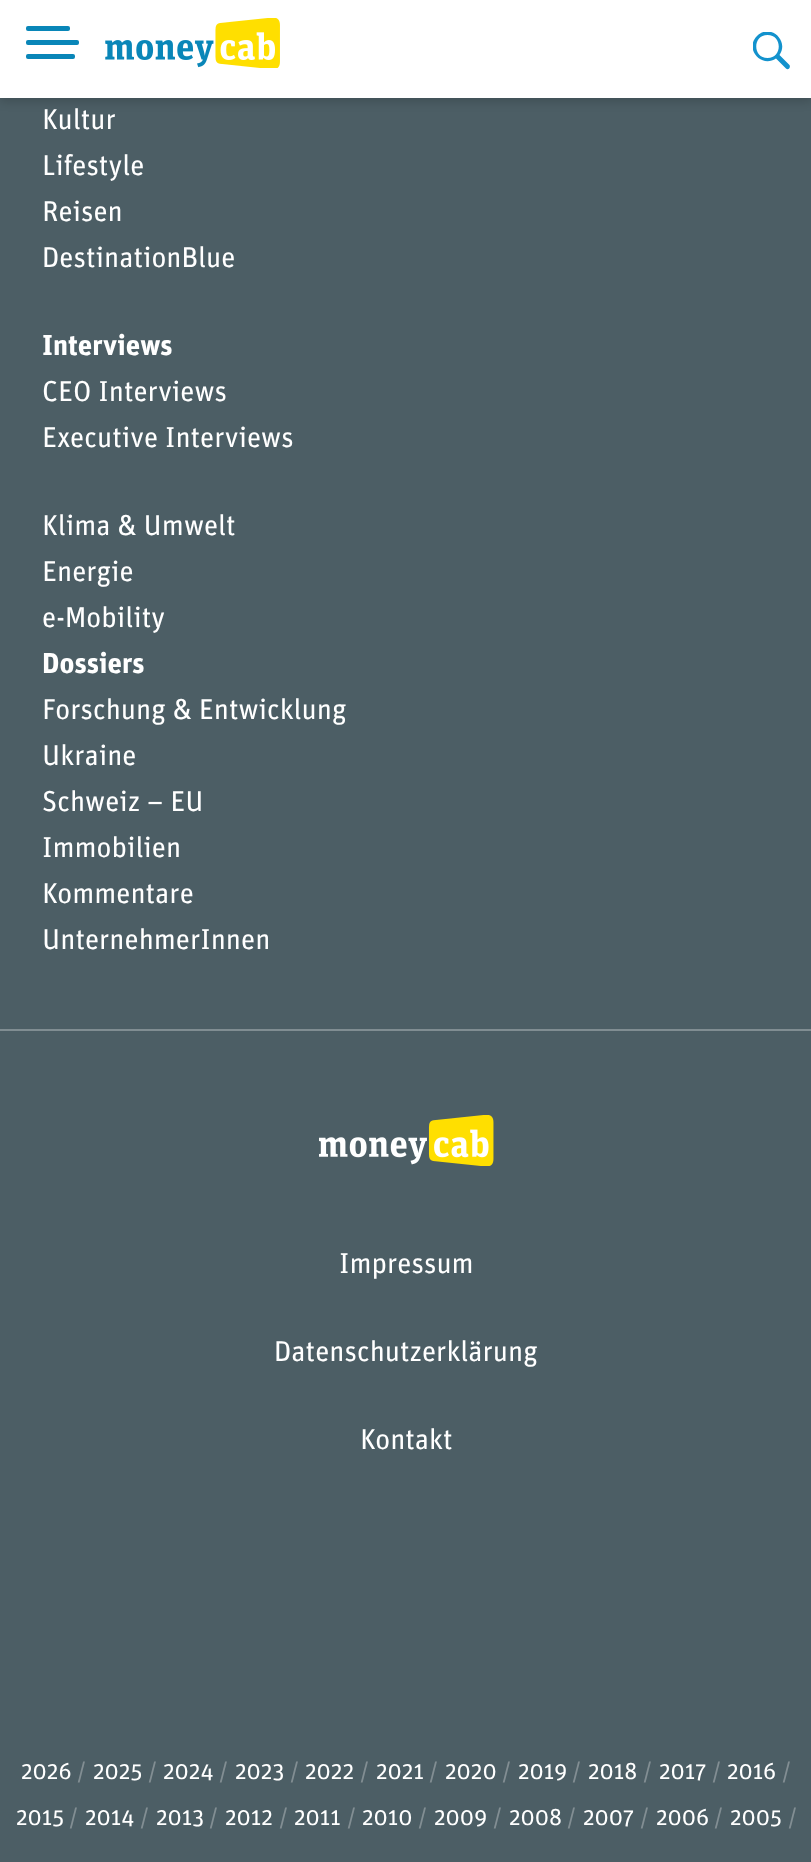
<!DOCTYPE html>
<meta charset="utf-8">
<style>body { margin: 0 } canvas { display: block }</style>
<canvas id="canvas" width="811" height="1862"></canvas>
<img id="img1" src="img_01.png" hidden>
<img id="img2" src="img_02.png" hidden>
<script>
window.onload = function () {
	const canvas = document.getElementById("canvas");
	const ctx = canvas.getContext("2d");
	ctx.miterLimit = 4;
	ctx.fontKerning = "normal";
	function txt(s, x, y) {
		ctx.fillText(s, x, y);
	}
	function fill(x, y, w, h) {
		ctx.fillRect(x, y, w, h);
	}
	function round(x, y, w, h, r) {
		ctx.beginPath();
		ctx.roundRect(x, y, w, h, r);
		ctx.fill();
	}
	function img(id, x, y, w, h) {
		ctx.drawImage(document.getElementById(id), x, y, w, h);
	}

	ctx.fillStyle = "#4C5E65";
	fill(0, 0, 811, 1862);
	ctx.fillStyle = "rgba(0, 0, 0, 0.15)";
	ctx.filter = "blur(5px)";
	ctx.beginPath();
	ctx.rect(0, 4, 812, 98);
	ctx.fill();
	ctx.filter = "none";
	ctx.fillStyle = "#FFFFFF";
	fill(0, 0, 811, 98);
	ctx.fillStyle = "#0986B8";
	round(26, 40, 53, 5, 2);
	round(26, 26, 44, 5, 2);
	round(26, 54, 49, 5, 2);
	img("img1", 105, 18, 175, 50);
	ctx.save();
	ctx.beginPath();
	ctx.rect(753, 32, 38, 38);
	ctx.clip();
	ctx.fillStyle = "#1392CD";
	ctx.beginPath();
	ctx.moveTo(776, 58.5);
	ctx.bezierCurveTo(761.5, 68.5, 744, 49, 757, 36);
	ctx.bezierCurveTo(770, 23, 789.5, 40.5, 779.5, 55);
	ctx.lineTo(789.5, 65);
	ctx.bezierCurveTo(791, 67.5, 788, 70.5, 786, 68.5);
	ctx.closePath();
	ctx.moveTo(767.5, 58);
	ctx.bezierCurveTo(782.5, 58, 782.5, 35, 767.5, 35);
	ctx.bezierCurveTo(752.5, 35, 752.5, 58, 767.5, 58);
	ctx.closePath();
	ctx.fill();
	ctx.restore();
	ctx.fillStyle = "#808D92";
	fill(0, 1029, 811, 2);
	img("img2", 319, 1115, 175, 51);
	ctx.font = "28.75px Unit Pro";
	ctx.fillStyle = "#FFFFFF";
	txt("Kultur", 42, 129);
	txt("Lifestyle", 42, 175);
	txt("Reisen", 42, 221);
	txt("DestinationBlue", 42, 267);
	ctx.font = "bold 28.75px Unit Pro";
	txt("Interviews", 42, 355);
	ctx.font = "28.75px Unit Pro";
	txt("CEO Interviews", 42, 401);
	txt("Executive Interviews", 42, 447);
	txt("Klima & Umwelt", 42, 535);
	txt("Energie", 42, 581);
	txt("e-Mobility", 42, 627);
	ctx.font = "bold 28.75px Unit Pro";
	txt("Dossiers", 42, 673);
	ctx.font = "28.75px Unit Pro";
	txt("Forschung & Entwicklung", 42, 719);
	txt("Ukraine", 42, 765);
	txt("Schweiz – EU", 42, 811);
	txt("Immobilien", 42, 857);
	txt("Kommentare", 42, 903);
	txt("UnternehmerInnen", 42, 949);
	txt("Impressum", 339, 1273);
	txt("Datenschutzerklärung", 274, 1361);
	txt("Kontakt", 360, 1449);
	ctx.font = "23px Unit Pro";
	txt("2026", 21, 1779);
	ctx.fillStyle = "#828E93";
	txt("/", 77, 1779);
	ctx.fillStyle = "#FFFFFF";
	txt("2025", 93, 1779);
	ctx.fillStyle = "#828E93";
	txt("/", 148, 1779);
	ctx.fillStyle = "#FFFFFF";
	txt("2024", 163, 1779);
	ctx.fillStyle = "#828E93";
	txt("/", 219, 1779);
	ctx.fillStyle = "#FFFFFF";
	txt("2023", 235, 1779);
	ctx.fillStyle = "#828E93";
	txt("/", 290, 1779);
	ctx.fillStyle = "#FFFFFF";
	txt("2022", 305, 1779);
	ctx.fillStyle = "#828E93";
	txt("/", 360, 1779);
	ctx.fillStyle = "#FFFFFF";
	txt("2021", 376, 1779);
	ctx.fillStyle = "#828E93";
	txt("/", 429, 1779);
	ctx.fillStyle = "#FFFFFF";
	txt("2020", 445, 1779);
	ctx.fillStyle = "#828E93";
	txt("/", 502, 1779);
	ctx.fillStyle = "#FFFFFF";
	txt("2019", 518, 1779);
	ctx.fillStyle = "#828E93";
	txt("/", 572, 1779);
	ctx.fillStyle = "#FFFFFF";
	txt("2018", 588, 1779);
	ctx.fillStyle = "#828E93";
	txt("/", 643, 1779);
	ctx.fillStyle = "#FFFFFF";
	txt("2017", 659, 1779);
	ctx.fillStyle = "#828E93";
	txt("/", 712, 1779);
	ctx.fillStyle = "#FFFFFF";
	txt("2016", 727, 1779);
	ctx.fillStyle = "#828E93";
	txt("/", 782, 1779);
	ctx.fillStyle = "#FFFFFF";
	txt("2015", 16, 1825);
	ctx.fillStyle = "#828E93";
	txt("/", 69, 1825);
	ctx.fillStyle = "#FFFFFF";
	txt("2014", 85, 1825);
	ctx.fillStyle = "#828E93";
	txt("/", 140, 1825);
	ctx.fillStyle = "#FFFFFF";
	txt("2013", 156, 1825);
	ctx.fillStyle = "#828E93";
	txt("/", 209, 1825);
	ctx.fillStyle = "#FFFFFF";
	txt("2012", 225, 1825);
	ctx.fillStyle = "#828E93";
	txt("/", 279, 1825);
	ctx.fillStyle = "#FFFFFF";
	txt("2011", 294, 1825);
	ctx.fillStyle = "#828E93";
	txt("/", 347, 1825);
	ctx.fillStyle = "#FFFFFF";
	txt("2010", 362, 1825);
	ctx.fillStyle = "#828E93";
	txt("/", 418, 1825);
	ctx.fillStyle = "#FFFFFF";
	txt("2009", 434, 1825);
	ctx.fillStyle = "#828E93";
	txt("/", 493, 1825);
	ctx.fillStyle = "#FFFFFF";
	txt("2008", 509, 1825);
	ctx.fillStyle = "#828E93";
	txt("/", 567, 1825);
	ctx.fillStyle = "#FFFFFF";
	txt("2007", 583, 1825);
	ctx.fillStyle = "#828E93";
	txt("/", 640, 1825);
	ctx.fillStyle = "#FFFFFF";
	txt("2006", 656, 1825);
	ctx.fillStyle = "#828E93";
	txt("/", 714, 1825);
	ctx.fillStyle = "#FFFFFF";
	txt("2005", 730, 1825);
	ctx.fillStyle = "#828E93";
	txt("/", 788, 1825);
};
</script>
